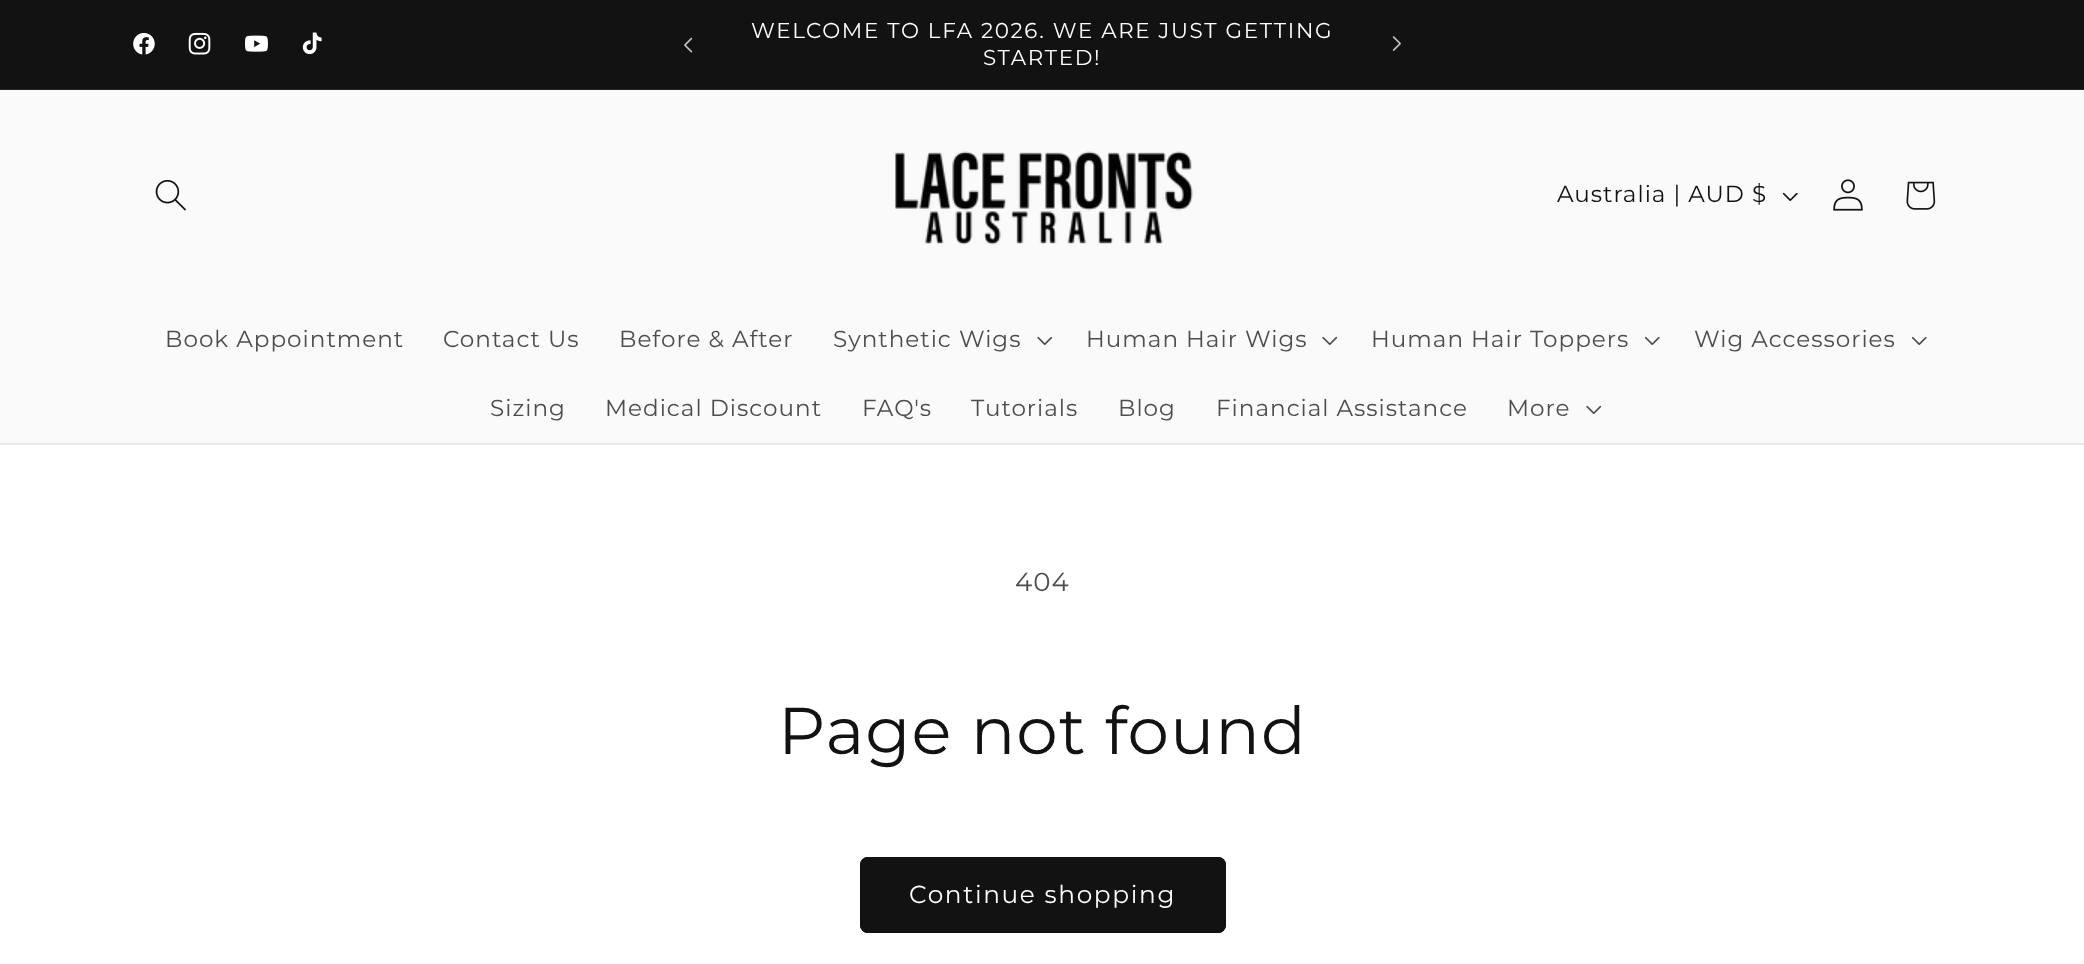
<!DOCTYPE html>
<meta charset="utf-8">
<style>body { margin: 0 } canvas { display: block }</style>
<canvas id="canvas" width="2084" height="964"></canvas>
<img id="img1" src="img_01.png" hidden>
<img id="img2" src="img_02.png" hidden>
<img id="img3" src="img_03.png" hidden>
<img id="img4" src="img_04.png" hidden>
<img id="img5" src="img_05.png" hidden>
<img id="img6" src="img_06.png" hidden>
<img id="img7" src="img_07.png" hidden>
<img id="img8" src="img_08.png" hidden>
<img id="img9" src="img_09.png" hidden>
<img id="img10" src="img_10.png" hidden>
<img id="img11" src="img_11.png" hidden>
<img id="img12" src="img_12.png" hidden>
<img id="img13" src="img_13.png" hidden>
<script>
window.onload = function () {
	const canvas = document.getElementById("canvas");
	const ctx = canvas.getContext("2d");
	ctx.miterLimit = 4;
	ctx.fontKerning = "normal";
	function txt(s, x, y) {
		ctx.fillText(s, x, y);
	}
	function fill(x, y, w, h) {
		ctx.fillRect(x, y, w, h);
	}
	function round(x, y, w, h, r) {
		ctx.beginPath();
		ctx.roundRect(x, y, w, h, r);
		ctx.fill();
	}
	function img(id, x, y, w, h) {
		ctx.drawImage(document.getElementById(id), x, y, w, h);
	}

	ctx.fillStyle = "#FFFFFF";
	fill(0, 0, 2084, 964);
	ctx.fillStyle = "#ECECEC";
	fill(0, 444, 2084, 1);
	ctx.fillStyle = "#121212";
	fill(0, 0, 2084, 89);
	ctx.fillStyle = "#252525";
	fill(0, 89, 2084, 1);
	img("img1", 133, 32, 22, 23);
	img("img2", 188, 32, 23, 23);
	img("img3", 245, 35, 23, 17);
	img("img4", 302, 32, 20, 23);
	img("img5", 684, 37, 9, 16);
	img("img6", 1392, 36, 9, 15);
	ctx.fillStyle = "#FAFAFA";
	fill(0, 90, 2084, 353);
	ctx.fillStyle = "#E7E7E7";
	fill(0, 443, 2084, 1);
	img("img7", 155, 179, 31, 32);
	img("img8", 895, 151, 298, 94);
	img("img9", 1782, 192, 16, 9);
	img("img10", 1833, 179, 30, 32);
	img("img11", 1906, 181, 30, 29);
	img("img12", 1037, 336, 16, 9);
	img("img12", 1322, 336, 16, 9);
	img("img13", 1644, 336, 16, 9);
	img("img13", 1911, 336, 16, 9);
	img("img12", 1586, 405, 16, 9);
	ctx.fillStyle = "#121212";
	round(860, 857, 366, 76, 8);
	ctx.beginPath();
	ctx.roundRect(861, 858, 364, 74, 7);
	ctx.strokeStyle = "#121212";
	ctx.lineWidth = 2;
	ctx.stroke();
	ctx.letterSpacing = "1.65px";
	ctx.font = "21.45px Montserrat";
	ctx.fillStyle = "#FFFFFF";
	txt("WELCOME TO LFA 2026. WE ARE JUST GETTING", 751, 38);
	txt("STARTED!", 983, 65);
	ctx.letterSpacing = "1px";
	ctx.font = "23.1px Montserrat";
	ctx.fillStyle = "#121212";
	txt("Australia | AUD $", 1557, 202);
	ctx.fillStyle = "#4D4D4D";
	txt("Book Appointment", 165, 347);
	txt("Contact Us", 443, 347);
	txt("Before & After", 619, 347);
	txt("Synthetic Wigs", 833, 347);
	txt("Human Hair Wigs", 1086, 347);
	txt("Human Hair Toppers", 1371, 347);
	txt("Wig Accessories", 1694, 347);
	txt("Sizing", 490, 416);
	txt("Medical Discount", 605, 416);
	txt("FAQ's", 862, 416);
	txt("Tutorials", 971, 416);
	txt("Blog", 1118, 416);
	txt("Financial Assistance", 1216, 416);
	txt("More", 1507, 416);
	ctx.font = "26px Montserrat";
	txt("404", 1015, 591);
	ctx.font = "66px Montserrat";
	ctx.fillStyle = "#121212";
	txt("Page not found", 778, 754);
	ctx.letterSpacing = "1.65px";
	ctx.font = "24.75px Montserrat";
	ctx.fillStyle = "#FFFFFF";
	txt("Continue shopping", 909, 903);
};
</script>
